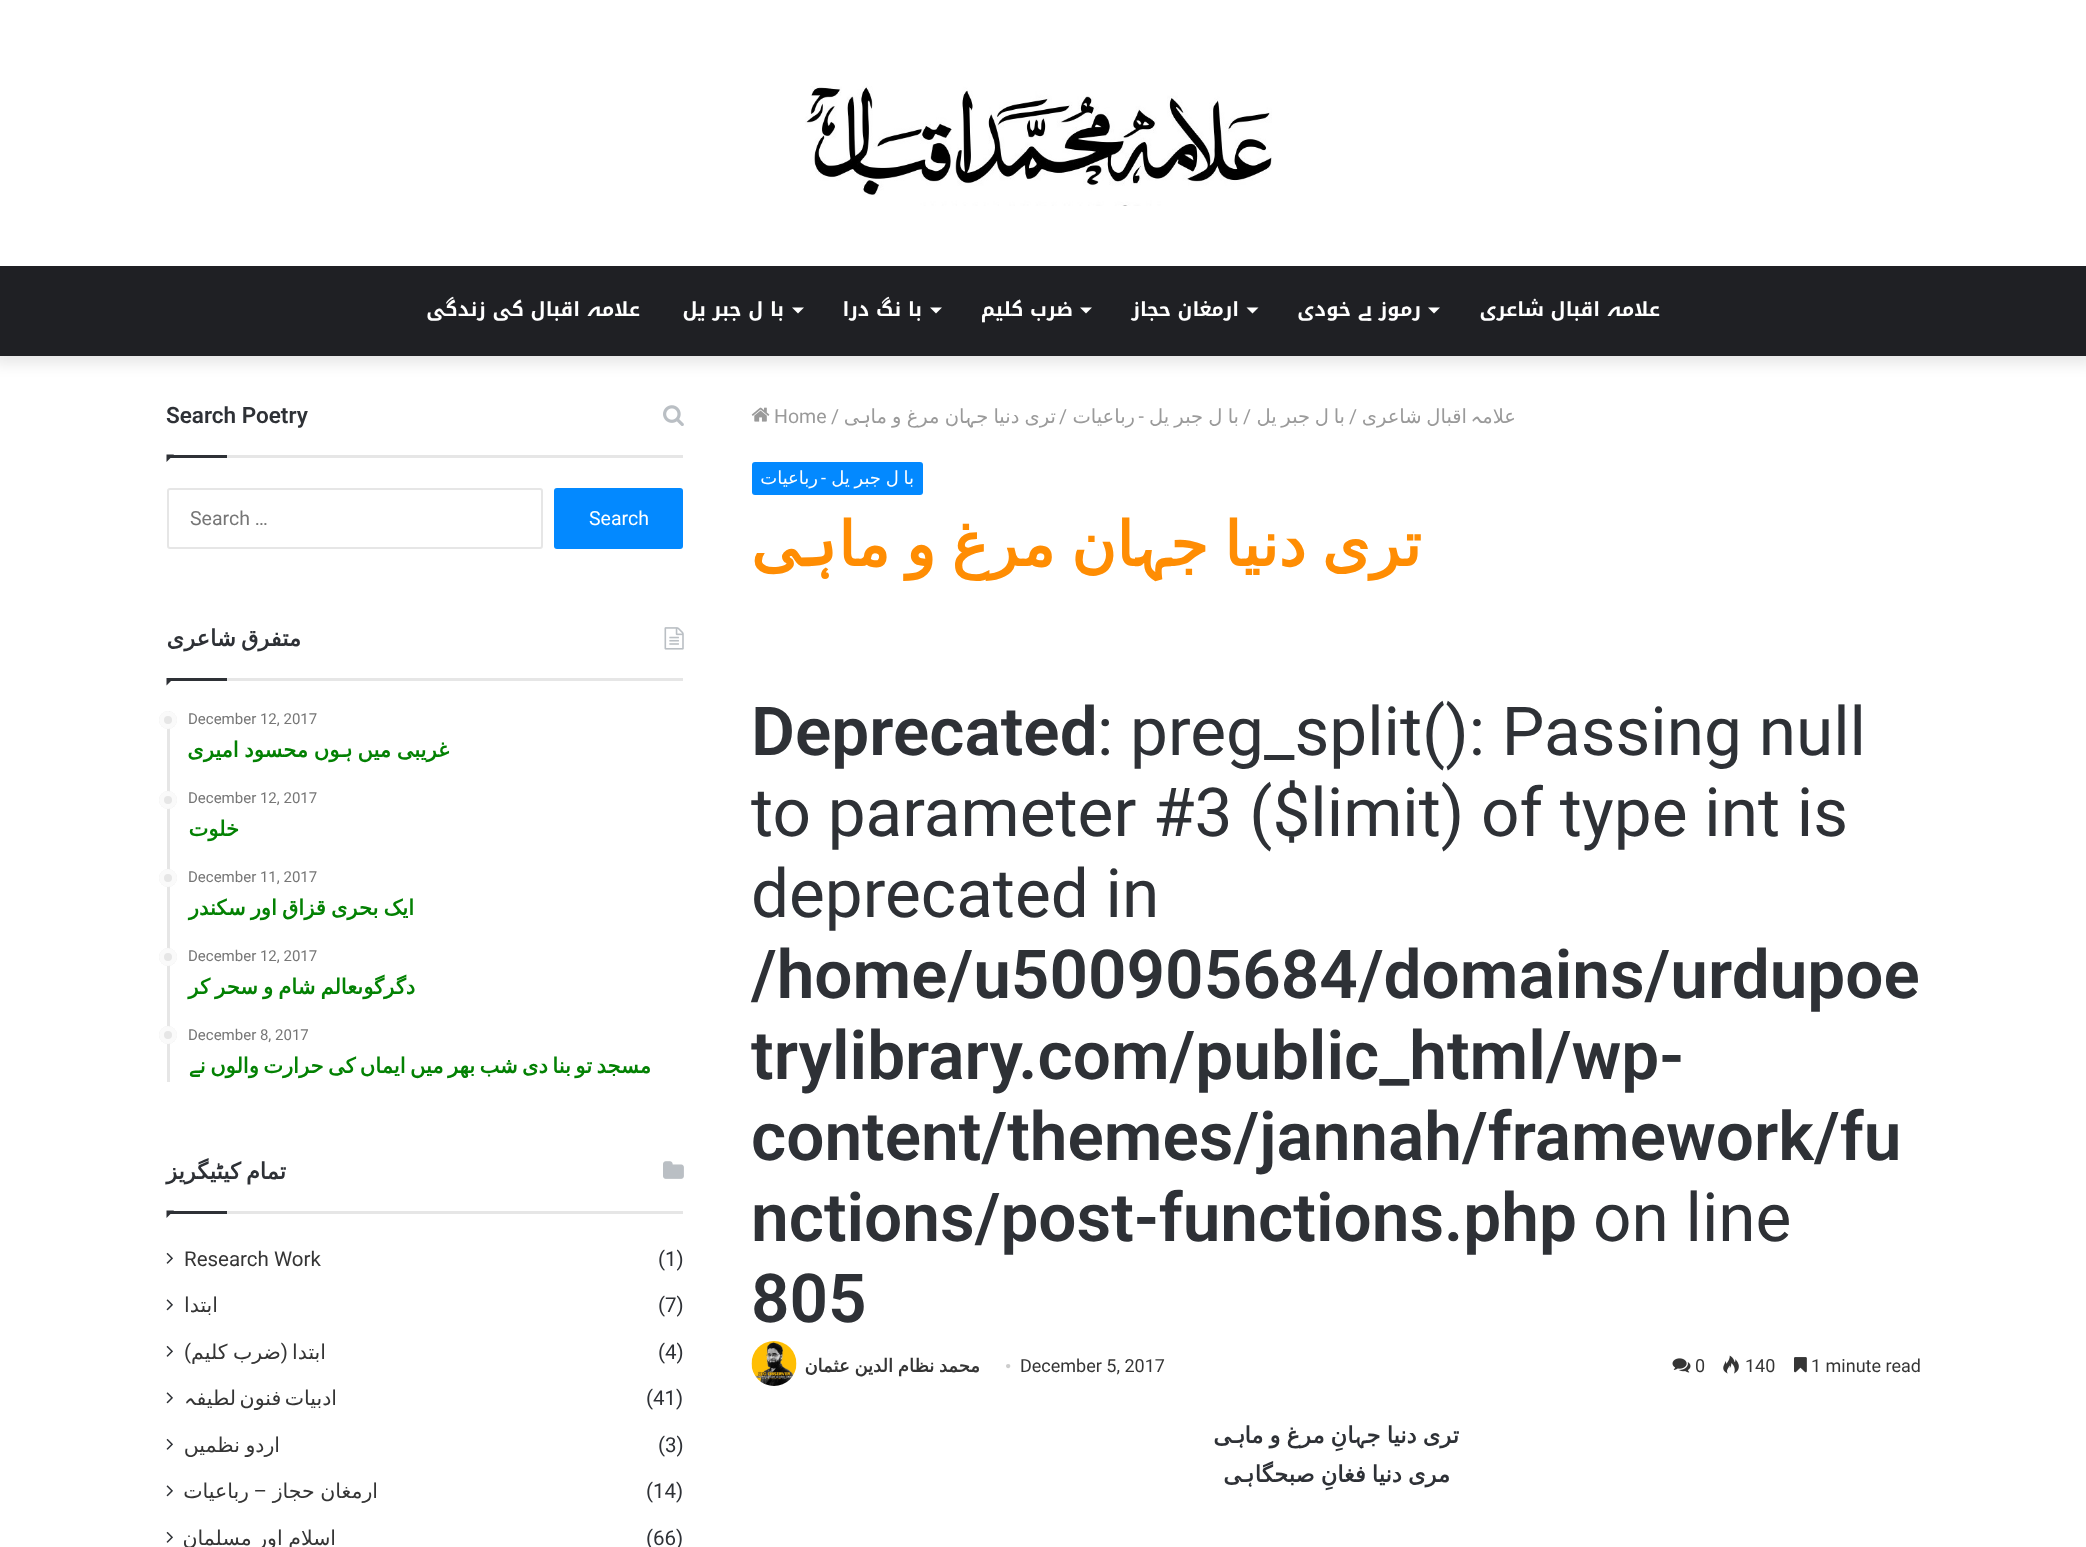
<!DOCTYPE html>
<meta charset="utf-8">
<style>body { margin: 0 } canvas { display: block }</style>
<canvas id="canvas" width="2086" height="1547"></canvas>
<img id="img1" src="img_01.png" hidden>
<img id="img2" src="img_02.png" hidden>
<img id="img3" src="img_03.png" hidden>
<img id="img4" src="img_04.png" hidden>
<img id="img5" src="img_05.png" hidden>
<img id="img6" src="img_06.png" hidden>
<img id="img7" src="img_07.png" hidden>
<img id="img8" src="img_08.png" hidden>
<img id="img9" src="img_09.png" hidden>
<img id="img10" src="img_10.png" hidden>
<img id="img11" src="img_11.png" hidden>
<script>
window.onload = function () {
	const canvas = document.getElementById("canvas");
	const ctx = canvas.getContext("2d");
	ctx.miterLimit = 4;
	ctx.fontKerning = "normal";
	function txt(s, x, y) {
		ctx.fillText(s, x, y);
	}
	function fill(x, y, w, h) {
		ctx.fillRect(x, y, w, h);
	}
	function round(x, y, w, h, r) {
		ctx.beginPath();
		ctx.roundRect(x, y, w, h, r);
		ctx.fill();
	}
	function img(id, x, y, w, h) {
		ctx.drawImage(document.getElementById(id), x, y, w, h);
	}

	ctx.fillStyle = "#FFFFFF";
	fill(0, 0, 2086, 1547);
	ctx.fillStyle = "rgba(0, 0, 0, 0.1)";
	ctx.filter = "blur(7.5px)";
	ctx.beginPath();
	ctx.rect(-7, -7, 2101, 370);
	ctx.fill();
	ctx.filter = "none";
	ctx.fillStyle = "#FFFFFF";
	fill(0, 0, 2086, 266);
	img("img1", 805, 86, 467, 120);
	ctx.fillStyle = "#1F2024";
	fill(0, 266, 2086, 90);
	ctx.fillStyle = "#FFFFFF";
	ctx.beginPath();
	ctx.moveTo(1428, 307.5);
	ctx.lineTo(1440, 307.5);
	ctx.lineTo(1434, 313.5);
	ctx.closePath();
	ctx.fill();
	ctx.beginPath();
	ctx.moveTo(1246.5, 307.5);
	ctx.lineTo(1258.5, 307.5);
	ctx.lineTo(1252.5, 313.5);
	ctx.closePath();
	ctx.fill();
	ctx.beginPath();
	ctx.moveTo(1080, 307.5);
	ctx.lineTo(1092, 307.5);
	ctx.lineTo(1086, 313.5);
	ctx.closePath();
	ctx.fill();
	ctx.beginPath();
	ctx.moveTo(930, 307.5);
	ctx.lineTo(942, 307.5);
	ctx.lineTo(936, 313.5);
	ctx.closePath();
	ctx.fill();
	ctx.beginPath();
	ctx.moveTo(792, 307.5);
	ctx.lineTo(804, 307.5);
	ctx.lineTo(798, 313.5);
	ctx.closePath();
	ctx.fill();
	img("img2", 751, 407, 19, 15);
	ctx.fillStyle = "#0389FF";
	round(752, 462, 171, 33, 3);
	img("img3", 1794, 1357, 13, 16);
	img("img4", 1723, 1355, 16, 19);
	img("img5", 1672, 1358, 19, 15);
	img("img6", 751, 1341, 46, 45);
	ctx.fillStyle = "#E6E6E6";
	fill(227, 455, 456, 3);
	img("img7", 663, 405, 21, 21);
	ctx.fillStyle = "#2E3136";
	ctx.beginPath();
	ctx.moveTo(166.5, 454.5);
	ctx.lineTo(174, 454.5);
	ctx.lineTo(166.5, 462);
	ctx.closePath();
	ctx.fill();
	fill(167, 455, 60, 3);
	ctx.fillStyle = "#0389FF";
	round(554, 488, 129, 61, 3);
	ctx.beginPath();
	ctx.roundRect(168, 489, 374, 59, 2);
	ctx.strokeStyle = "#E6E6E6";
	ctx.lineWidth = 2;
	ctx.stroke();
	ctx.fillStyle = "#E6E6E6";
	fill(227, 678, 456, 3);
	img("img8", 664, 627, 20, 23);
	ctx.fillStyle = "#2E3136";
	ctx.beginPath();
	ctx.moveTo(166.5, 678);
	ctx.lineTo(174, 678);
	ctx.lineTo(166.5, 685.5);
	ctx.closePath();
	ctx.fill();
	fill(167, 678, 60, 3);
	ctx.fillStyle = "#E6E6E6";
	fill(167, 711, 3, 371);
	ctx.beginPath();
	ctx.arc(168, 720, 9, 0, Math.PI * 2);
	ctx.fill();
	ctx.beginPath();
	ctx.arc(168, 720, 6.5, 0, Math.PI * 2);
	ctx.strokeStyle = "rgba(255, 255, 255, 0.8)";
	ctx.lineWidth = 5;
	ctx.stroke();
	ctx.beginPath();
	ctx.arc(168, 800, 9, 0, Math.PI * 2);
	ctx.fill();
	ctx.beginPath();
	ctx.arc(168, 800, 6.5, 0, Math.PI * 2);
	ctx.stroke();
	ctx.beginPath();
	ctx.arc(168, 878, 9, 0, Math.PI * 2);
	ctx.fill();
	ctx.beginPath();
	ctx.arc(168, 878, 6.5, 0, Math.PI * 2);
	ctx.stroke();
	ctx.beginPath();
	ctx.arc(168, 957, 9, 0, Math.PI * 2);
	ctx.fill();
	ctx.beginPath();
	ctx.arc(168, 957, 6.5, 0, Math.PI * 2);
	ctx.stroke();
	ctx.beginPath();
	ctx.arc(168, 1035, 9, 0, Math.PI * 2);
	ctx.fill();
	ctx.beginPath();
	ctx.arc(168, 1035, 6.5, 0, Math.PI * 2);
	ctx.stroke();
	fill(227, 1211, 456, 3);
	img("img9", 663, 1161, 21, 18);
	ctx.fillStyle = "#2E3136";
	ctx.beginPath();
	ctx.moveTo(166.5, 1210.5);
	ctx.lineTo(174, 1210.5);
	ctx.lineTo(166.5, 1218);
	ctx.closePath();
	ctx.fill();
	fill(167, 1211, 60, 3);
	img("img10", 166, 1252, 7, 12);
	img("img11", 166, 1299, 7, 12);
	img("img10", 166, 1345, 7, 12);
	img("img11", 166, 1392, 7, 12);
	img("img10", 166, 1438, 7, 12);
	img("img11", 166, 1485, 7, 12);
	img("img10", 166, 1531, 7, 12);
	ctx.direction = "rtl";
	ctx.font = "bold 19.5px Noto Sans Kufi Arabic";
	ctx.fillStyle = "#FFFFFF";
	txt("علامہ اقبال شاعری", 1660, 316);
	txt("رموز بے خودی", 1421, 316);
	txt("ارمغان حجاز", 1239, 316);
	txt("ضرب کلیم", 1073, 316);
	txt("با نگ درا", 922, 316);
	txt("با ل جبر یل", 784, 316);
	txt("علامہ اقبال کی زندگی", 640, 316);
	ctx.font = "19.5px Cascadia Code";
	ctx.fillStyle = "#9A9A9A";
	txt("‍ہ", 1482, 423);
	ctx.font = "19.5px DejaVu Sans";
	txt("علام‍", 1516, 423);
	ctx.wordSpacing = "-1.5px";
	txt("اقبال شاعری", 1467, 423);
	ctx.wordSpacing = "0px";
	ctx.direction = "ltr";
	ctx.font = "19.5px Roboto";
	txt("/", 1349, 423);
	ctx.wordSpacing = "-1.5px";
	ctx.direction = "rtl";
	ctx.font = "19.5px DejaVu Sans";
	txt("با ل جبر یل", 1345, 423);
	ctx.wordSpacing = "0px";
	ctx.direction = "ltr";
	ctx.font = "19.5px Roboto";
	txt("/", 1243, 423);
	ctx.wordSpacing = "-1px";
	ctx.direction = "rtl";
	ctx.font = "19.5px DejaVu Sans";
	txt("با ل جبر یل", 1239, 423);
	ctx.wordSpacing = "0px";
	ctx.font = "19.5px Roboto";
	txt("-", 1144, 423);
	ctx.font = "19.5px DejaVu Sans";
	txt("رباعيات", 1135, 423);
	ctx.direction = "ltr";
	ctx.font = "19.5px Roboto";
	txt("/", 1059, 423);
	ctx.wordSpacing = "-1px";
	ctx.direction = "rtl";
	ctx.font = "19.5px DejaVu Sans";
	txt("‍ان مرغ و ما", 965, 423);
	ctx.wordSpacing = "0px";
	ctx.font = "19.5px Cascadia Code";
	txt("‍ہ‍", 976, 423);
	ctx.wordSpacing = "-1px";
	ctx.font = "19.5px DejaVu Sans";
	txt("تری دنيا ج‍", 1056, 423);
	ctx.wordSpacing = "0px";
	txt("‍ی", 860, 423);
	ctx.font = "19.5px Cascadia Code";
	txt("ہ‍", 871, 423);
	ctx.direction = "ltr";
	ctx.font = "19.5px Roboto";
	txt("/", 831, 423);
	txt("Home", 774, 423);
	ctx.wordSpacing = "-1px";
	ctx.direction = "rtl";
	ctx.font = "18px DejaVu Sans";
	ctx.fillStyle = "#FFFFFF";
	txt("با ل جبر یل", 914, 484);
	ctx.wordSpacing = "0px";
	ctx.font = "18px Roboto";
	txt("-", 826, 484);
	ctx.font = "18px DejaVu Sans";
	txt("رباعيات", 818, 484);
	ctx.wordSpacing = "-3.5px";
	ctx.font = "bold 61.5px DejaVu Sans";
	ctx.fillStyle = "#FF8D03";
	txt("‍ان مرغ و ما", 1135, 566);
	ctx.wordSpacing = "0px";
	ctx.font = "bold 61.5px Cascadia Code";
	txt("‍ہ‍", 1171, 566);
	ctx.wordSpacing = "-3.5px";
	ctx.font = "bold 61.5px DejaVu Sans";
	txt("تری دنيا ج‍", 1421, 566);
	ctx.wordSpacing = "0px";
	txt("‍ی", 802, 566);
	ctx.font = "bold 61.5px Cascadia Code";
	txt("ہ‍", 838, 566);
	ctx.direction = "ltr";
	ctx.font = "67.5px Roboto";
	ctx.fillStyle = "#2E3136";
	txt(": preg_split(): Passing null", 1097, 755);
	ctx.font = "600 67.5px Roboto";
	txt("Deprecated", 751, 755);
	ctx.font = "67.5px Roboto";
	txt("to parameter #3 ($limit) of type int is", 751, 836);
	txt("deprecated in", 751, 917);
	ctx.font = "600 67.5px Roboto";
	txt("/home/u500905684/domains/urdupoe", 751, 998);
	txt("trylibrary.com/public_html/wp-", 751, 1079);
	txt("content/themes/jannah/framework/fu", 751, 1160);
	ctx.font = "67.5px Roboto";
	txt("on line", 1593, 1241);
	ctx.font = "600 67.5px Roboto";
	txt("nctions/post-functions.php", 751, 1241);
	txt("805", 751, 1322);
	ctx.font = "18px Roboto";
	ctx.fillStyle = "#353535";
	txt("1 minute read", 1811, 1372);
	txt("140", 1745, 1372);
	txt("0", 1695, 1372);
	txt("December 5, 2017", 1020, 1372);
	ctx.font = "18px Liberation Serif";
	ctx.fillStyle = "#CDCDCD";
	txt("•", 1005, 1372);
	ctx.wordSpacing = "-1px";
	ctx.direction = "rtl";
	ctx.font = "bold 18px DejaVu Sans";
	ctx.fillStyle = "#353535";
	txt("محمد نظام الدین عثمان", 980, 1372);
	ctx.font = "bold 22.5px DejaVu Sans";
	ctx.fillStyle = "#2E3136";
	txt("‍انِ مرغ و ما", 1354, 1443);
	ctx.wordSpacing = "0px";
	ctx.font = "600 22.5px Cascadia Code";
	txt("‍ہ‍", 1367, 1443);
	ctx.wordSpacing = "-1px";
	ctx.font = "bold 22.5px DejaVu Sans";
	txt("تری دنیا ج‍", 1459, 1443);
	ctx.wordSpacing = "0px";
	txt("‍ی", 1232, 1443);
	ctx.font = "600 22.5px Cascadia Code";
	txt("ہ‍", 1246, 1443);
	ctx.wordSpacing = "-1px";
	ctx.font = "bold 22.5px DejaVu Sans";
	txt("مری دنیا فغانِ صبحگا", 1450, 1482);
	ctx.wordSpacing = "0px";
	txt("‍ی", 1242, 1482);
	ctx.font = "600 22.5px Cascadia Code";
	txt("ہ‍", 1255, 1482);
	ctx.direction = "ltr";
	ctx.font = "600 22.5px Roboto";
	txt("Search Poetry", 166, 423);
	ctx.font = "19.5px Roboto";
	ctx.fillStyle = "#FFFFFF";
	txt("Search", 589, 525);
	ctx.fillStyle = "#767676";
	txt("Search …", 190, 525);
	ctx.wordSpacing = "-2px";
	ctx.direction = "rtl";
	ctx.font = "bold 22.5px DejaVu Sans";
	ctx.fillStyle = "#2E3136";
	txt("متفرق شاعری", 301, 646);
	ctx.wordSpacing = "0px";
	ctx.direction = "ltr";
	ctx.font = "15px Roboto";
	ctx.fillStyle = "#767676";
	txt("December 12, 2017", 188, 724);
	ctx.wordSpacing = "-1px";
	ctx.direction = "rtl";
	ctx.font = "bold 21px DejaVu Sans";
	ctx.fillStyle = "#038103";
	txt("غريبی ميں", 449, 757);
	txt("‍وں محسود اميری", 340, 757);
	ctx.wordSpacing = "0px";
	ctx.font = "600 21px Cascadia Code";
	txt("ہ‍", 353, 757);
	ctx.direction = "ltr";
	ctx.font = "15px Roboto";
	ctx.fillStyle = "#767676";
	txt("December 12, 2017", 188, 803);
	ctx.direction = "rtl";
	ctx.font = "bold 21px DejaVu Sans";
	ctx.fillStyle = "#038103";
	txt("خلوت", 239, 836);
	ctx.direction = "ltr";
	ctx.font = "15px Roboto";
	ctx.fillStyle = "#767676";
	txt("December 11, 2017", 188, 882);
	ctx.wordSpacing = "-1.5px";
	ctx.direction = "rtl";
	ctx.font = "bold 21px DejaVu Sans";
	ctx.fillStyle = "#038103";
	txt("ايک بحری قزاق اور سکندر", 414, 915);
	ctx.wordSpacing = "0px";
	ctx.direction = "ltr";
	ctx.font = "15px Roboto";
	ctx.fillStyle = "#767676";
	txt("December 12, 2017", 188, 961);
	ctx.wordSpacing = "-1.5px";
	ctx.direction = "rtl";
	ctx.font = "bold 21px DejaVu Sans";
	ctx.fillStyle = "#038103";
	txt("دگرگوںعالم شام و سحر کر", 415, 994);
	ctx.wordSpacing = "0px";
	ctx.direction = "ltr";
	ctx.font = "15px Roboto";
	ctx.fillStyle = "#767676";
	txt("December 8, 2017", 188, 1040);
	ctx.direction = "rtl";
	ctx.font = "600 21px Cascadia Code";
	ctx.fillStyle = "#038103";
	txt("‍ے", 201, 1073);
	ctx.wordSpacing = "-2.25px";
	ctx.font = "bold 21px DejaVu Sans";
	txt("مسجد تو بنا دی شب بھر ميں ايماں کی حرارت والوں ن‍", 651, 1073);
	ctx.wordSpacing = "-2px";
	ctx.font = "bold 22.5px DejaVu Sans";
	ctx.fillStyle = "#2E3136";
	txt("تمام کیٹیگریز", 286, 1179);
	ctx.wordSpacing = "0px";
	ctx.direction = "ltr";
	ctx.font = "20.5px Roboto";
	txt("(1)", 658, 1266);
	ctx.fillStyle = "#353535";
	txt("Research Work", 184, 1266);
	ctx.fillStyle = "#2E3136";
	txt("(7)", 658, 1312);
	ctx.direction = "rtl";
	ctx.font = "20.5px DejaVu Sans";
	ctx.fillStyle = "#353535";
	txt("ابتدا", 218, 1312);
	ctx.direction = "ltr";
	ctx.font = "20.5px Roboto";
	ctx.fillStyle = "#2E3136";
	txt("(4)", 658, 1359);
	ctx.direction = "rtl";
	ctx.font = "20.5px DejaVu Sans";
	ctx.fillStyle = "#353535";
	txt("ابتدا", 326, 1359);
	ctx.font = "20.5px Roboto";
	txt("(", 288, 1359);
	ctx.wordSpacing = "-1px";
	ctx.font = "20.5px DejaVu Sans";
	txt("ضرب کلیم", 281, 1359);
	ctx.wordSpacing = "0px";
	ctx.font = "20.5px Roboto";
	txt(")", 191, 1359);
	ctx.direction = "ltr";
	ctx.fillStyle = "#2E3136";
	txt("(41)", 646, 1405);
	ctx.direction = "rtl";
	ctx.font = "20.5px Cascadia Code";
	ctx.fillStyle = "#353535";
	txt("‍ہ", 196, 1405);
	ctx.wordSpacing = "-3px";
	ctx.font = "20.5px DejaVu Sans";
	txt("ادبیات فنون لطیف‍", 337, 1405);
	ctx.wordSpacing = "0px";
	ctx.direction = "ltr";
	ctx.font = "20.5px Roboto";
	ctx.fillStyle = "#2E3136";
	txt("(3)", 658, 1452);
	ctx.wordSpacing = "-1px";
	ctx.direction = "rtl";
	ctx.font = "20.5px DejaVu Sans";
	ctx.fillStyle = "#353535";
	txt("اردو نظمیں", 280, 1452);
	ctx.wordSpacing = "0px";
	ctx.direction = "ltr";
	ctx.font = "20.5px Roboto";
	ctx.fillStyle = "#2E3136";
	txt("(14)", 646, 1498);
	ctx.wordSpacing = "-1px";
	ctx.direction = "rtl";
	ctx.font = "20.5px DejaVu Sans";
	ctx.fillStyle = "#353535";
	txt("ارمغان حجاز", 378, 1498);
	ctx.wordSpacing = "0px";
	ctx.font = "20.5px Roboto";
	txt("–", 267, 1498);
	ctx.font = "20.5px DejaVu Sans";
	txt("رباعیات", 249, 1498);
	ctx.direction = "ltr";
	ctx.font = "20.5px Roboto";
	ctx.fillStyle = "#2E3136";
	txt("(66)", 646, 1545);
	ctx.wordSpacing = "-1px";
	ctx.direction = "rtl";
	ctx.font = "20.5px DejaVu Sans";
	ctx.fillStyle = "#353535";
	txt("اسلام اور مسلمان", 336, 1545);
};
</script>
